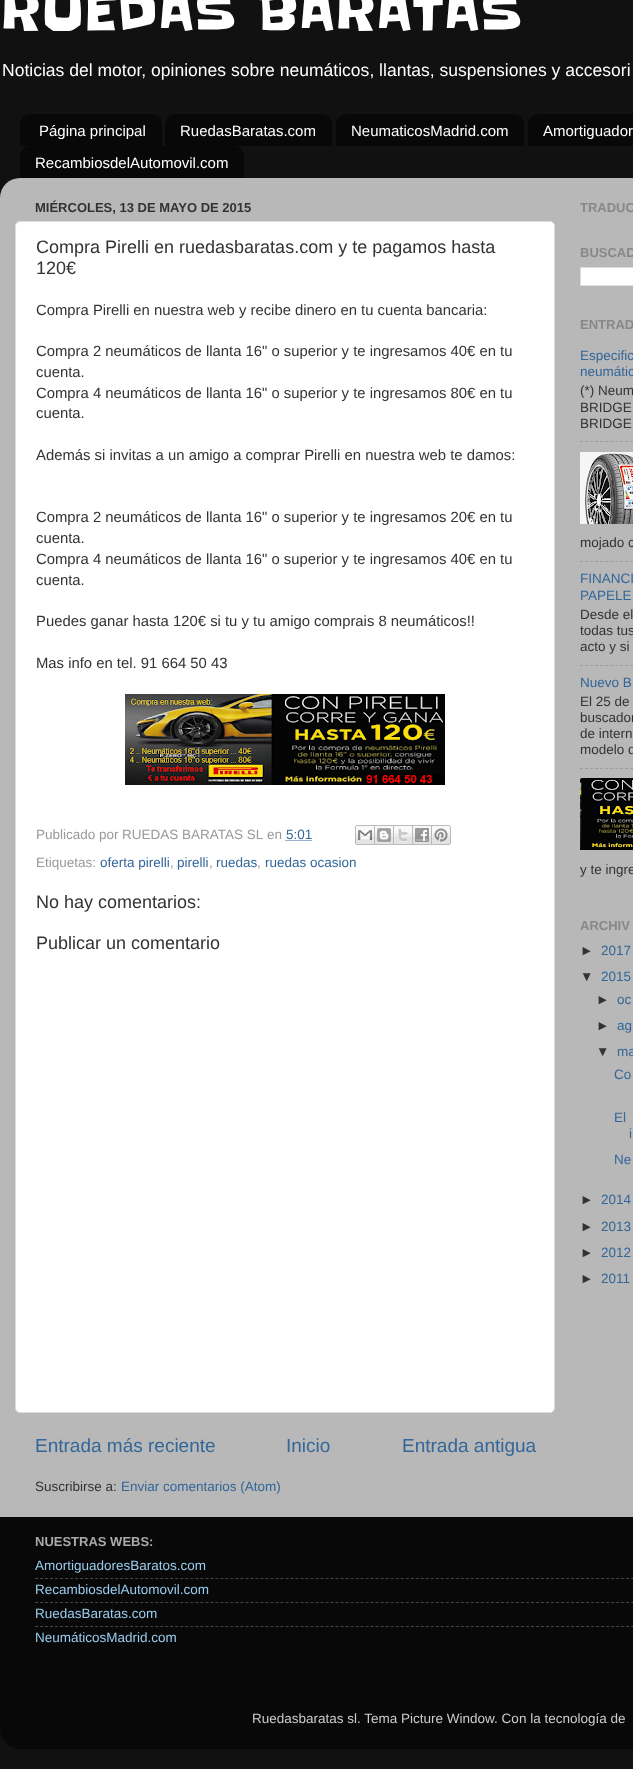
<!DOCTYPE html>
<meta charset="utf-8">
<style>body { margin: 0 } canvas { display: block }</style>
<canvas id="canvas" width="633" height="1769"></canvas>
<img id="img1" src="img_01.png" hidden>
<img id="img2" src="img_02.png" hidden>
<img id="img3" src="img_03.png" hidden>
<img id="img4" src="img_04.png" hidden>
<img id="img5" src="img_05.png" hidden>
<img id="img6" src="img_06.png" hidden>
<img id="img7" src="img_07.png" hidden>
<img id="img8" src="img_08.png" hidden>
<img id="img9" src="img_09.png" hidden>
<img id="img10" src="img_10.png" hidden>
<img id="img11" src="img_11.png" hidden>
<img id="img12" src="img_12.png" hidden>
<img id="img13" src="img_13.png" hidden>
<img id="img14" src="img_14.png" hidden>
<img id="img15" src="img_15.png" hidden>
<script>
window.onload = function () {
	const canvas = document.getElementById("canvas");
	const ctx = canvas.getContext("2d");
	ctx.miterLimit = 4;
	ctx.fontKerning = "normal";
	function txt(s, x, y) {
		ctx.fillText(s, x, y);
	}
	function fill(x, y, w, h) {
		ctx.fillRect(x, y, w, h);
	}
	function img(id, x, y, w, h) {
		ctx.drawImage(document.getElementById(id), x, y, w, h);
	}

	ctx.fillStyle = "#111111";
	fill(0, 0, 633, 1769);
	img("img1", 20, 114, 142, 32);
	img("img2", 165, 114, 167, 32);
	img("img3", 336, 114, 188, 32);
	img("img4", 528, 114, 105, 32);
	img("img5", 20, 146, 224, 32);
	img("img6", 0, 178, 633, 1339);
	ctx.fillStyle = "#FFFFFF";
	ctx.beginPath();
	ctx.roundRect(15.5, 221.5, 539, 1191, 4.5);
	ctx.fill();
	ctx.strokeStyle = "#DDDDDD";
	ctx.stroke();
	img("img7", 125, 694, 320, 91);
	ctx.beginPath();
	ctx.moveTo(285.5, 840.5);
	ctx.lineTo(312, 840.5);
	ctx.strokeStyle = "#336699";
	ctx.setLineDash([1, 1]);
	ctx.stroke();
	img("img8", 355, 825, 20, 20);
	img("img9", 375, 825, 19, 20);
	img("img10", 394, 825, 19, 20);
	img("img11", 413, 825, 19, 20);
	img("img12", 432, 825, 19, 20);
	ctx.beginPath();
	ctx.rect(580.5, 267.5, 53, 18);
	ctx.fill();
	ctx.strokeStyle = "#DDDDDD";
	ctx.setLineDash([]);
	ctx.stroke();
	ctx.beginPath();
	ctx.moveTo(580, 441.5);
	ctx.lineTo(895, 441.5);
	ctx.strokeStyle = "#9C9C9C";
	ctx.setLineDash([3, 2.03]);
	ctx.stroke();
	img("img13", 580, 452, 53, 72);
	ctx.beginPath();
	ctx.moveTo(580, 561.5);
	ctx.lineTo(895, 561.5);
	ctx.stroke();
	ctx.beginPath();
	ctx.moveTo(580, 665.5);
	ctx.lineTo(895, 665.5);
	ctx.stroke();
	ctx.beginPath();
	ctx.moveTo(580, 768.5);
	ctx.lineTo(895, 768.5);
	ctx.stroke();
	img("img14", 580, 778, 53, 72);
	img("img15", 0, 1517, 633, 232);
	ctx.beginPath();
	ctx.moveTo(35, 1578.5);
	ctx.lineTo(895, 1578.5);
	ctx.strokeStyle = "#444444";
	ctx.setLineDash([3, 2.01]);
	ctx.stroke();
	ctx.beginPath();
	ctx.moveTo(35, 1602.5);
	ctx.lineTo(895, 1602.5);
	ctx.stroke();
	ctx.beginPath();
	ctx.moveTo(35, 1626.5);
	ctx.lineTo(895, 1626.5);
	ctx.stroke();
	ctx.font = "50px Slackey";
	txt("RUEDAS BARATAS", 0, 30);
	ctx.font = "17.55px Liberation Sans";
	txt("Noticias del motor, opiniones sobre neumáticos, llantas, suspensiones y accesori", 2, 76);
	ctx.font = "15px Liberation Sans";
	txt("Página principal", 39, 136);
	txt("RuedasBaratas.com", 180, 136);
	txt("NeumaticosMadrid.com", 351, 136);
	txt("Amortiguador", 543, 136);
	txt("RecambiosdelAutomovil.com", 35, 168);
	ctx.font = "bold 13px Liberation Sans";
	ctx.fillStyle = "#333333";
	txt("MIÉRCOLES, 13 DE MAYO DE 2015", 35, 212);
	ctx.font = "18px Liberation Sans";
	txt("Compra Pirelli en ruedasbaratas.com y te pagamos hasta", 36, 253);
	txt("120€", 36, 274);
	ctx.font = "14.85px Liberation Sans";
	txt("Compra Pirelli en nuestra web y recibe dinero en tu cuenta bancaria:", 36, 315);
	txt("Compra 2 neumáticos de llanta 16\" o superior y te ingresamos 40€ en tu", 36, 356);
	txt("cuenta.", 36, 377);
	txt("Compra 4 neumáticos de llanta 16\" o superior y te ingresamos 80€ en tu", 36, 398);
	txt("cuenta.", 36, 418);
	txt("Además si invitas a un amigo a comprar Pirelli en nuestra web te damos:", 36, 460);
	txt("Compra 2 neumáticos de llanta 16\" o superior y te ingresamos 20€ en tu", 36, 522);
	txt("cuenta.", 36, 543);
	txt("Compra 4 neumáticos de llanta 16\" o superior y te ingresamos 40€ en tu", 36, 564);
	txt("cuenta.", 36, 585);
	txt("Puedes ganar hasta 120€ si tu y tu amigo comprais 8 neumáticos!!", 36, 626);
	txt("Mas info en tel. 91 664 50 43", 36, 668);
	ctx.font = "13.5px Liberation Sans";
	ctx.fillStyle = "#999999";
	txt("Publicado por", 36, 839);
	txt("RUEDAS BARATAS SL", 122, 839);
	txt("en", 267, 839);
	ctx.fillStyle = "#336699";
	txt("5:01", 286, 839);
	ctx.fillStyle = "#999999";
	txt("Etiquetas:", 36, 867);
	ctx.fillStyle = "#336699";
	txt("oferta pirelli", 100, 867);
	ctx.fillStyle = "#999999";
	txt(",", 170, 867);
	ctx.fillStyle = "#336699";
	txt("pirelli", 177, 867);
	ctx.fillStyle = "#999999";
	txt(",", 209, 867);
	ctx.fillStyle = "#336699";
	txt("ruedas", 216, 867);
	ctx.fillStyle = "#999999";
	txt(",", 257, 867);
	ctx.fillStyle = "#336699";
	txt("ruedas ocasion", 265, 867);
	ctx.font = "18px Liberation Sans";
	ctx.fillStyle = "#333333";
	txt("No hay comentarios:", 36, 908);
	txt("Publicar un comentario", 36, 949);
	ctx.font = "19px Liberation Sans";
	ctx.fillStyle = "#336699";
	txt("Entrada más reciente", 35, 1452);
	txt("Inicio", 286, 1452);
	txt("Entrada antigua", 402, 1452);
	ctx.font = "13.5px Liberation Sans";
	ctx.fillStyle = "#333333";
	txt("Suscribirse a:", 35, 1491);
	ctx.fillStyle = "#336699";
	txt("Enviar comentarios (Atom)", 121, 1491);
	ctx.font = "bold 13px Liberation Sans";
	ctx.fillStyle = "#888888";
	txt("TRADUC", 580, 212);
	txt("BUSCAD", 580, 257);
	txt("ENTRAD", 580, 329);
	ctx.font = "13.5px Liberation Sans";
	ctx.fillStyle = "#336699";
	txt("Especific", 580, 360);
	txt("neumátic", 580, 376);
	ctx.fillStyle = "#333333";
	txt("(*) Neum", 580, 395);
	txt("BRIDGE", 580, 412);
	txt("BRIDGE", 580, 428);
	txt("mojado c", 580, 547);
	ctx.fillStyle = "#336699";
	txt("FINANCI", 580, 583);
	txt("PAPELE", 580, 600);
	ctx.fillStyle = "#333333";
	txt("Desde el", 580, 619);
	txt("todas tus", 580, 635);
	txt("acto y si", 580, 651);
	ctx.fillStyle = "#336699";
	txt("Nuevo B", 580, 687);
	ctx.fillStyle = "#333333";
	txt("El 25 de", 580, 706);
	txt("buscador", 580, 722);
	txt("de intern", 580, 738);
	txt("modelo d", 580, 754);
	txt("y te ingre", 580, 874);
	ctx.font = "bold 13px Liberation Sans";
	ctx.fillStyle = "#888888";
	txt("ARCHIV", 580, 930);
	ctx.font = "13.5px Liberation Sans";
	ctx.fillStyle = "#333333";
	txt("►", 580, 955);
	ctx.fillStyle = "#336699";
	txt("2017", 601, 955);
	ctx.fillStyle = "#333333";
	txt("▼", 580, 981);
	ctx.fillStyle = "#336699";
	txt("2015", 601, 981);
	ctx.fillStyle = "#333333";
	txt("►", 596, 1004);
	ctx.fillStyle = "#336699";
	txt("oc", 617, 1004);
	ctx.fillStyle = "#333333";
	txt("►", 596, 1030);
	ctx.fillStyle = "#336699";
	txt("ag", 617, 1030);
	ctx.fillStyle = "#333333";
	txt("▼", 596, 1056);
	ctx.fillStyle = "#336699";
	txt("ma", 617, 1056);
	txt("Co", 614, 1079);
	txt("El", 614, 1122);
	txt("i", 629, 1138);
	txt("Ne", 614, 1164);
	ctx.fillStyle = "#333333";
	txt("►", 580, 1204);
	ctx.fillStyle = "#336699";
	txt("2014", 601, 1204);
	ctx.fillStyle = "#333333";
	txt("►", 580, 1231);
	ctx.fillStyle = "#336699";
	txt("2013", 601, 1231);
	ctx.fillStyle = "#333333";
	txt("►", 580, 1257);
	ctx.fillStyle = "#336699";
	txt("2012", 601, 1257);
	ctx.fillStyle = "#333333";
	txt("►", 580, 1283);
	ctx.fillStyle = "#336699";
	txt("2011", 601, 1283);
	ctx.font = "bold 13px Liberation Sans";
	ctx.fillStyle = "#AAAAAA";
	txt("NUESTRAS WEBS:", 35, 1546);
	ctx.font = "13.5px Liberation Sans";
	ctx.fillStyle = "#99CCEE";
	txt("AmortiguadoresBaratos.com", 35, 1570);
	txt("RecambiosdelAutomovil.com", 35, 1594);
	txt("RuedasBaratas.com", 35, 1618);
	txt("NeumáticosMadrid.com", 35, 1642);
	ctx.fillStyle = "#CCCCCC";
	txt("Ruedasbaratas sl. Tema Picture Window. Con la tecnología de", 252, 1723);
};
</script>
